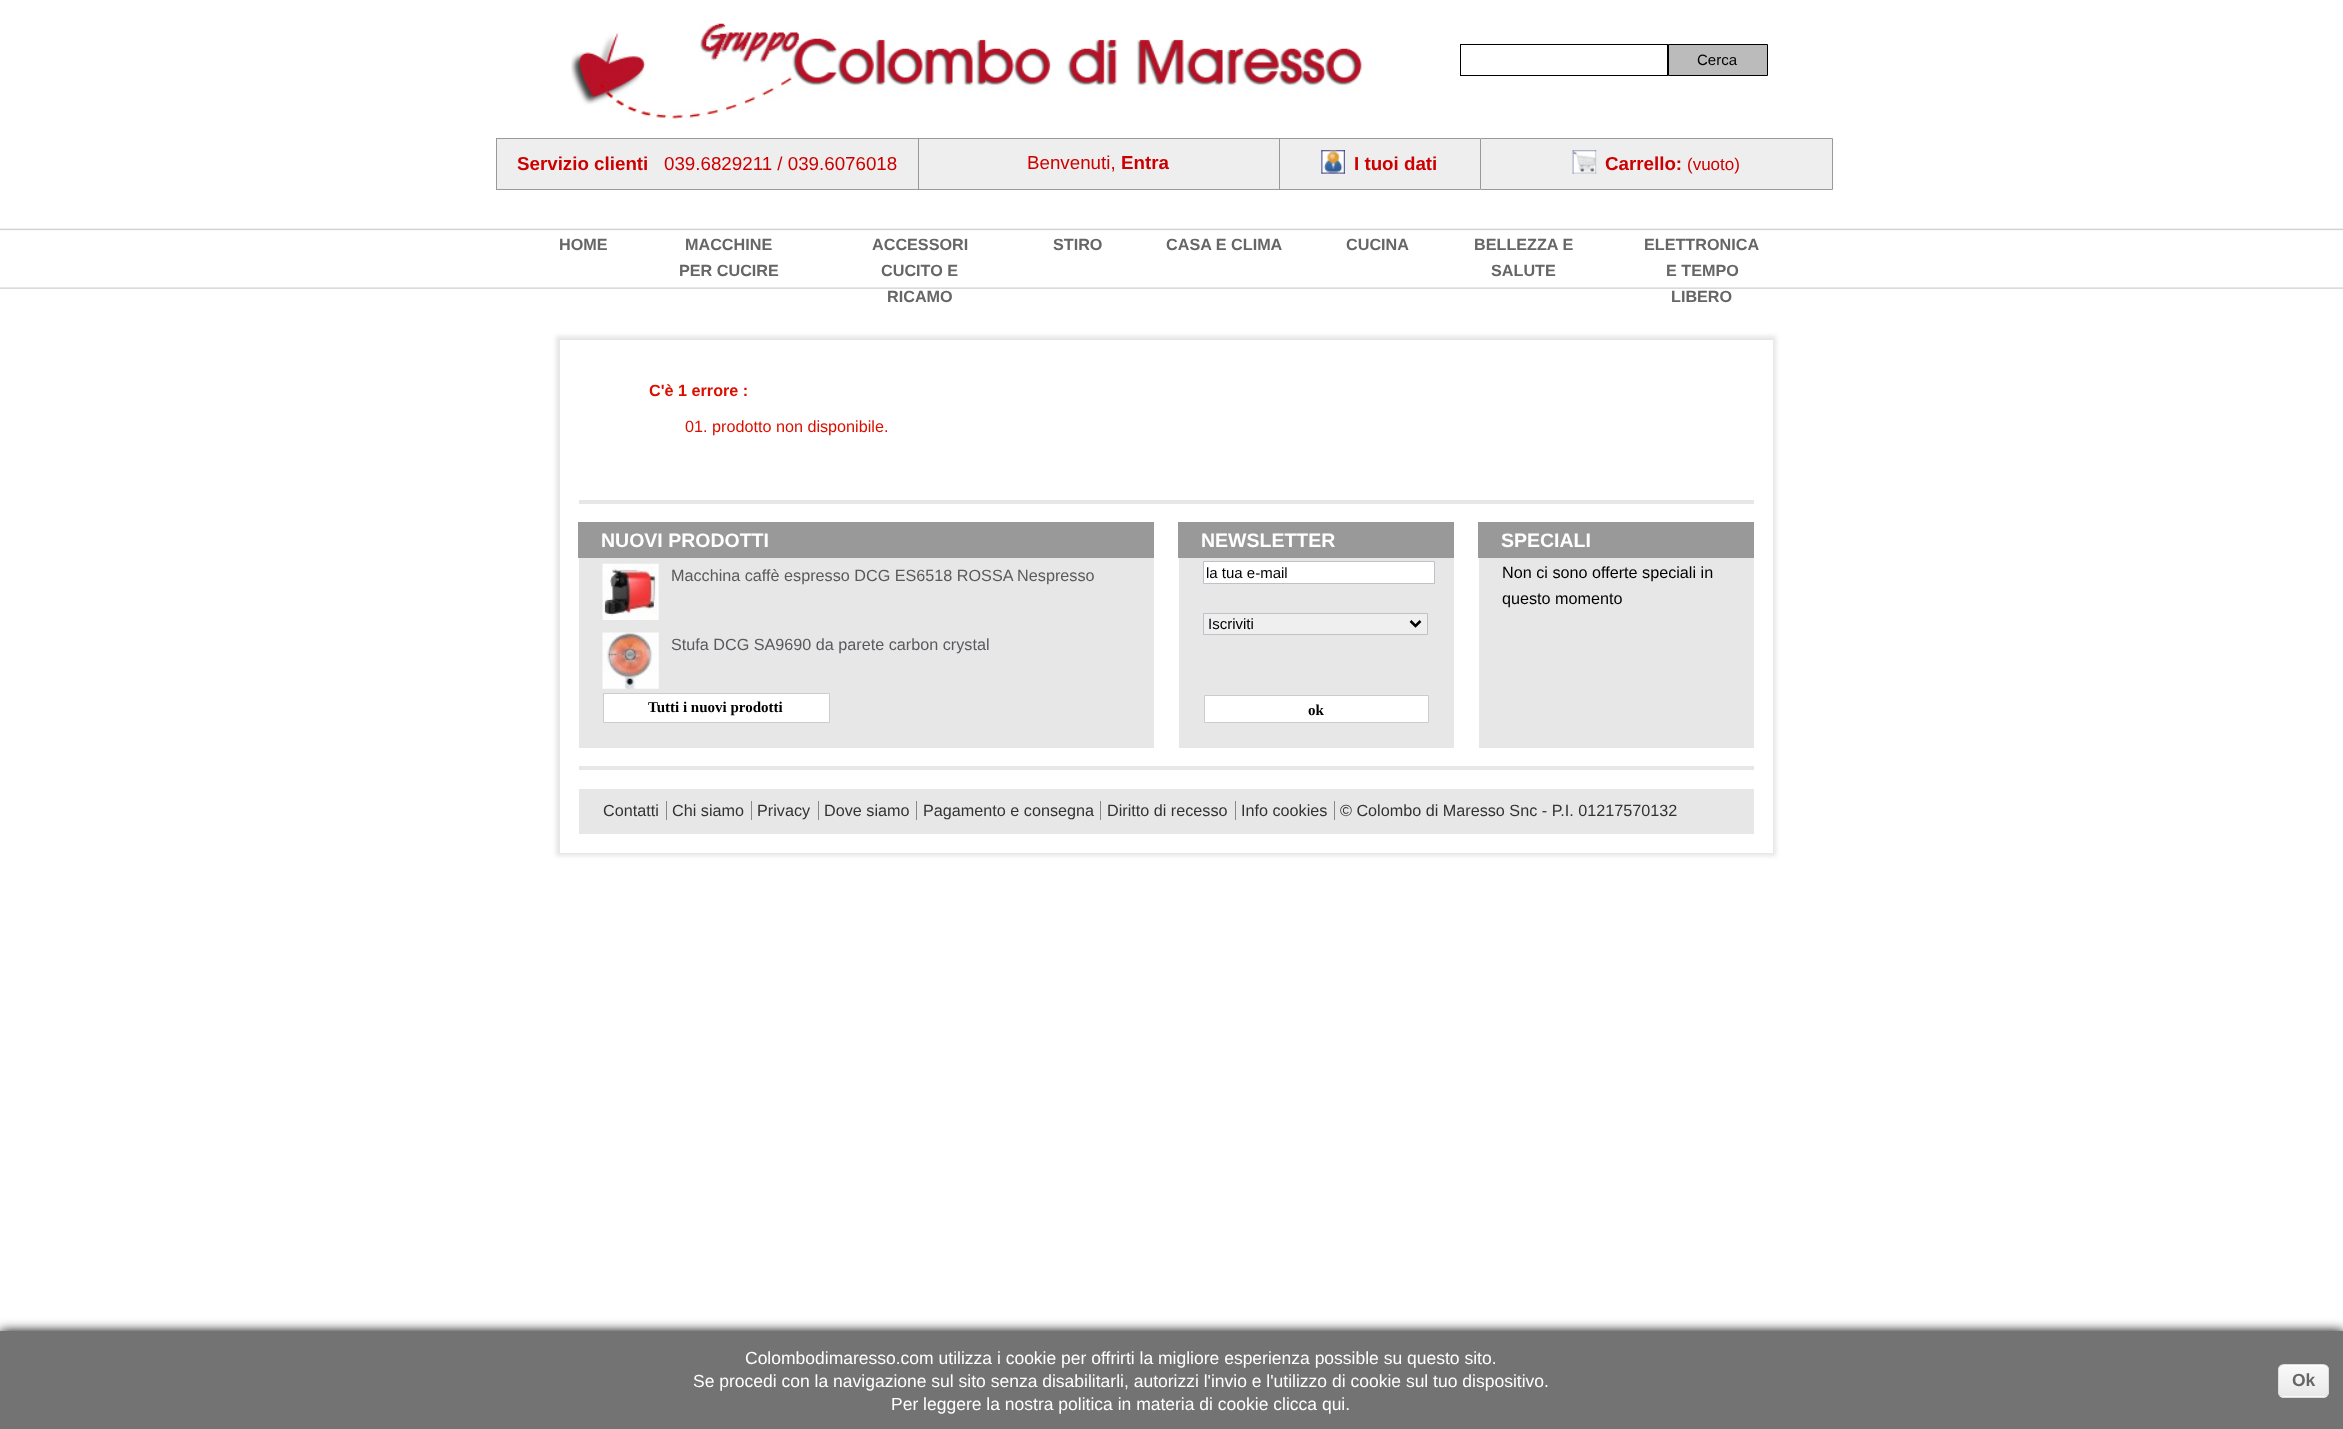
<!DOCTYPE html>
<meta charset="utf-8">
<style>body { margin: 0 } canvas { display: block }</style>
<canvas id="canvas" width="2343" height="1429"></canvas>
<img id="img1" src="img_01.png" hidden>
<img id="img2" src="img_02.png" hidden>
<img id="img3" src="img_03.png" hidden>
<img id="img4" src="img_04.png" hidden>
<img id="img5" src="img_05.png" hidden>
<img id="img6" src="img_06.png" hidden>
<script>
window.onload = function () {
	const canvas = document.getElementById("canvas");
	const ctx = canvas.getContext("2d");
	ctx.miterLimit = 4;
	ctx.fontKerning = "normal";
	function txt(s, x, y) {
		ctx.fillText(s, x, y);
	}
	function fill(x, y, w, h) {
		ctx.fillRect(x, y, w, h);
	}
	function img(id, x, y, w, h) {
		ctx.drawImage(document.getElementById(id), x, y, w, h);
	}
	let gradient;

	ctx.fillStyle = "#FFFFFF";
	fill(0, 0, 2343, 1429);
	img("img1", 0, 228, 2343, 61);
	img("img2", 571, 20, 791, 99);
	ctx.strokeStyle = "#000000";
	ctx.strokeRect(1460.5, 44.5, 207, 31);
	ctx.fillStyle = "#BBBBBB";
	ctx.beginPath();
	ctx.rect(1668.5, 44.5, 99, 31);
	ctx.fill();
	ctx.stroke();
	ctx.fillStyle = "#EEEEEE";
	fill(497, 139, 421, 50);
	ctx.fillStyle = "#999999";
	fill(496, 138, 422, 1);
	fill(496, 189, 422, 1);
	fill(496, 138, 1, 52);
	ctx.fillStyle = "#EEEEEE";
	fill(919, 139, 360, 50);
	ctx.fillStyle = "#999999";
	fill(918, 138, 562, 1);
	fill(918, 189, 562, 1);
	fill(918, 138, 1, 52);
	ctx.fillStyle = "#EEEEEE";
	fill(1280, 139, 200, 50);
	ctx.fillStyle = "#999999";
	fill(1279, 138, 1, 52);
	img("img3", 1321, 150, 24, 24);
	ctx.fillStyle = "#EEEEEE";
	ctx.beginPath();
	ctx.rect(1480.5, 138.5, 352, 51);
	ctx.fill();
	ctx.strokeStyle = "#999999";
	ctx.stroke();
	img("img4", 1572, 150, 25, 24);
	ctx.fillStyle = "rgba(0, 0, 0, 0.1)";
	ctx.filter = "blur(2px)";
	ctx.beginPath();
	ctx.rect(556, 336, 1220, 520);
	ctx.fill();
	ctx.filter = "none";
	ctx.fillStyle = "#FFFFFF";
	fill(560, 340, 1213, 513);
	ctx.fillStyle = "#E7E7E7";
	fill(579, 500, 1175, 4);
	fill(579, 558, 575, 190);
	ctx.fillStyle = "#999999";
	fill(578, 522, 576, 36);
	img("img5", 602, 563, 57, 57);
	img("img6", 602, 632, 57, 57);
	ctx.fillStyle = "#FFFFFF";
	ctx.beginPath();
	ctx.rect(603.5, 693.5, 226, 29);
	ctx.fill();
	ctx.strokeStyle = "#CCCCCC";
	ctx.stroke();
	ctx.fillStyle = "#E7E7E7";
	fill(1179, 558, 275, 190);
	ctx.fillStyle = "#999999";
	fill(1178, 522, 276, 36);
	ctx.fillStyle = "#FFFFFF";
	ctx.beginPath();
	ctx.rect(1203.5, 561.5, 231, 22);
	ctx.fill();
	ctx.strokeStyle = "#BDC2C9";
	ctx.stroke();
	ctx.fillStyle = "#EFEFEF";
	ctx.beginPath();
	ctx.rect(1203.5, 613.5, 224, 21);
	ctx.fill();
	ctx.stroke();
	ctx.beginPath();
	ctx.moveTo(1410.5, 621);
	ctx.lineTo(1415.5, 626);
	ctx.lineTo(1420.5, 621);
	ctx.strokeStyle = "#000000";
	ctx.lineWidth = 2.5;
	ctx.stroke();
	ctx.fillStyle = "#FFFFFF";
	ctx.beginPath();
	ctx.rect(1204.5, 695.5, 224, 27);
	ctx.fill();
	ctx.strokeStyle = "#CCCCCC";
	ctx.lineWidth = 1;
	ctx.stroke();
	ctx.fillStyle = "#E7E7E7";
	fill(1479, 558, 275, 190);
	ctx.fillStyle = "#999999";
	fill(1478, 522, 276, 36);
	ctx.fillStyle = "#E7E7E7";
	fill(579, 766, 1175, 4);
	fill(579, 789, 1175, 45);
	ctx.fillStyle = "#888888";
	fill(666, 801, 1, 19);
	fill(751, 801, 1, 19);
	fill(818, 801, 1, 19);
	fill(916, 801, 1, 19);
	fill(1100, 801, 1, 19);
	fill(1235, 801, 1, 19);
	fill(1334, 801, 1, 19);
	ctx.fillStyle = "#000000";
	ctx.filter = "blur(6px)";
	ctx.beginPath();
	ctx.rect(0, 1331, 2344, 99);
	ctx.fill();
	ctx.filter = "none";
	ctx.fillStyle = "#737373";
	fill(0, 1331, 2343, 98);
	ctx.save();
	ctx.beginPath();
	ctx.roundRect(2278, 1364, 51, 34, 6);
	ctx.clip();
	gradient = ctx.createLinearGradient(2279, 1365, 2279, 1396);
	gradient.addColorStop(0.05, "#F9F9F9");
	gradient.addColorStop(1, "#E9E9E9");
	ctx.fillStyle = gradient;
	fill(2278, 1365, 51, 31);
	gradient = ctx.createLinearGradient(2279, 1396, 2279, 1428);
	gradient.addColorStop(0.05, "#F9F9F9");
	gradient.addColorStop(1, "#E9E9E9");
	ctx.fillStyle = gradient;
	fill(2278, 1396, 51, 2);
	ctx.restore();
	ctx.fillStyle = "#FFFFFF";
	ctx.beginPath();
	ctx.moveTo(2284, 1366);
	ctx.lineTo(2322, 1366);
	ctx.bezierCurveTo(2325, 1366, 2328, 1368, 2328, 1371);
	ctx.bezierCurveTo(2328, 1364, 2322, 1365, 2316, 1365);
	ctx.lineTo(2290, 1365);
	ctx.bezierCurveTo(2285, 1365, 2279, 1364, 2279, 1371);
	ctx.bezierCurveTo(2279, 1368, 2281, 1366, 2284, 1366);
	ctx.closePath();
	ctx.fill();
	ctx.beginPath();
	ctx.roundRect(2278.5, 1364.5, 50, 33, 5.5);
	ctx.strokeStyle = "#DCDCDC";
	ctx.stroke();
	ctx.font = "15px Liberation Sans";
	ctx.fillStyle = "#000000";
	txt("Cerca", 1697, 65);
	ctx.font = "bold 18.75px Liberation Sans";
	ctx.fillStyle = "#CC0000";
	txt("Servizio clienti", 517, 170);
	ctx.font = "18.75px Liberation Sans";
	txt("039.6829211 / 039.6076018", 664, 170);
	txt("Benvenuti,", 1027, 169);
	ctx.font = "bold 18.75px Liberation Sans";
	txt("Entra", 1121, 169);
	txt("I tuoi dati", 1354, 170);
	txt("Carrello:", 1605, 170);
	ctx.font = "17px Liberation Sans";
	txt("(vuoto)", 1687, 170);
	ctx.font = "bold 16.2px Liberation Sans";
	ctx.fillStyle = "#666666";
	txt("HOME", 559, 250);
	txt("MACCHINE", 685, 250);
	txt("PER CUCIRE", 679, 276);
	txt("ACCESSORI", 872, 250);
	txt("CUCITO E", 881, 276);
	txt("RICAMO", 887, 302);
	txt("STIRO", 1053, 250);
	txt("CASA E CLIMA", 1166, 250);
	txt("CUCINA", 1346, 250);
	txt("BELLEZZA E", 1474, 250);
	txt("SALUTE", 1491, 276);
	txt("ELETTRONICA", 1644, 250);
	txt("E TEMPO", 1666, 276);
	txt("LIBERO", 1671, 302);
	ctx.fillStyle = "#DA0F00";
	txt("C'è 1 errore :", 649, 396);
	ctx.font = "16.2px Liberation Sans";
	txt("01. prodotto non disponibile.", 685, 432);
	ctx.font = "bold 19.5px Liberation Sans";
	ctx.fillStyle = "#FFFFFF";
	txt("NUOVI PRODOTTI", 601, 547);
	ctx.font = "16.2px Liberation Sans";
	ctx.fillStyle = "#595A5E";
	txt("Macchina caffè espresso DCG ES6518 ROSSA Nespresso", 671, 581);
	txt("Stufa DCG SA9690 da parete carbon crystal", 671, 650);
	ctx.font = "bold 15px Liberation Serif";
	ctx.fillStyle = "#000000";
	txt("Tutti i nuovi prodotti", 648, 712);
	ctx.font = "bold 19.5px Liberation Sans";
	ctx.fillStyle = "#FFFFFF";
	txt("NEWSLETTER", 1201, 547);
	ctx.font = "15px Liberation Sans";
	ctx.fillStyle = "#000000";
	txt("la tua e-mail", 1206, 578);
	txt("Iscriviti", 1208, 629);
	ctx.font = "bold 15px Liberation Serif";
	txt("ok", 1308, 715);
	ctx.font = "bold 19.5px Liberation Sans";
	ctx.fillStyle = "#FFFFFF";
	txt("SPECIALI", 1501, 547);
	ctx.font = "16.2px Liberation Sans";
	ctx.fillStyle = "#000000";
	txt("Non ci sono offerte speciali in", 1502, 578);
	txt("questo momento", 1502, 604);
	ctx.fillStyle = "#333333";
	txt("Contatti", 603, 816);
	txt("Chi siamo", 672, 816);
	txt("Privacy", 757, 816);
	txt("Dove siamo", 824, 816);
	txt("Pagamento e consegna", 923, 816);
	txt("Diritto di recesso", 1107, 816);
	txt("Info cookies", 1241, 816);
	txt("© Colombo di Maresso Snc - P.I. 01217570132", 1340, 816);
	ctx.font = "17.5px Liberation Sans";
	ctx.fillStyle = "#FFFFFF";
	txt("Colombodimaresso.com utilizza i cookie per offrirti la migliore esperienza possible su questo sito.", 745, 1364);
	txt("Se procedi con la navigazione sul sito senza disabilitarli, autorizzi l'invio e l'utilizzo di cookie sul tuo dispositivo.", 693, 1387);
	txt("Per leggere la nostra politica in materia di cookie clicca qui.", 891, 1410);
	ctx.font = "bold 17.5px Liberation Sans";
	ctx.fillStyle = "#666666";
	txt("Ok", 2292, 1386);
};
</script>
